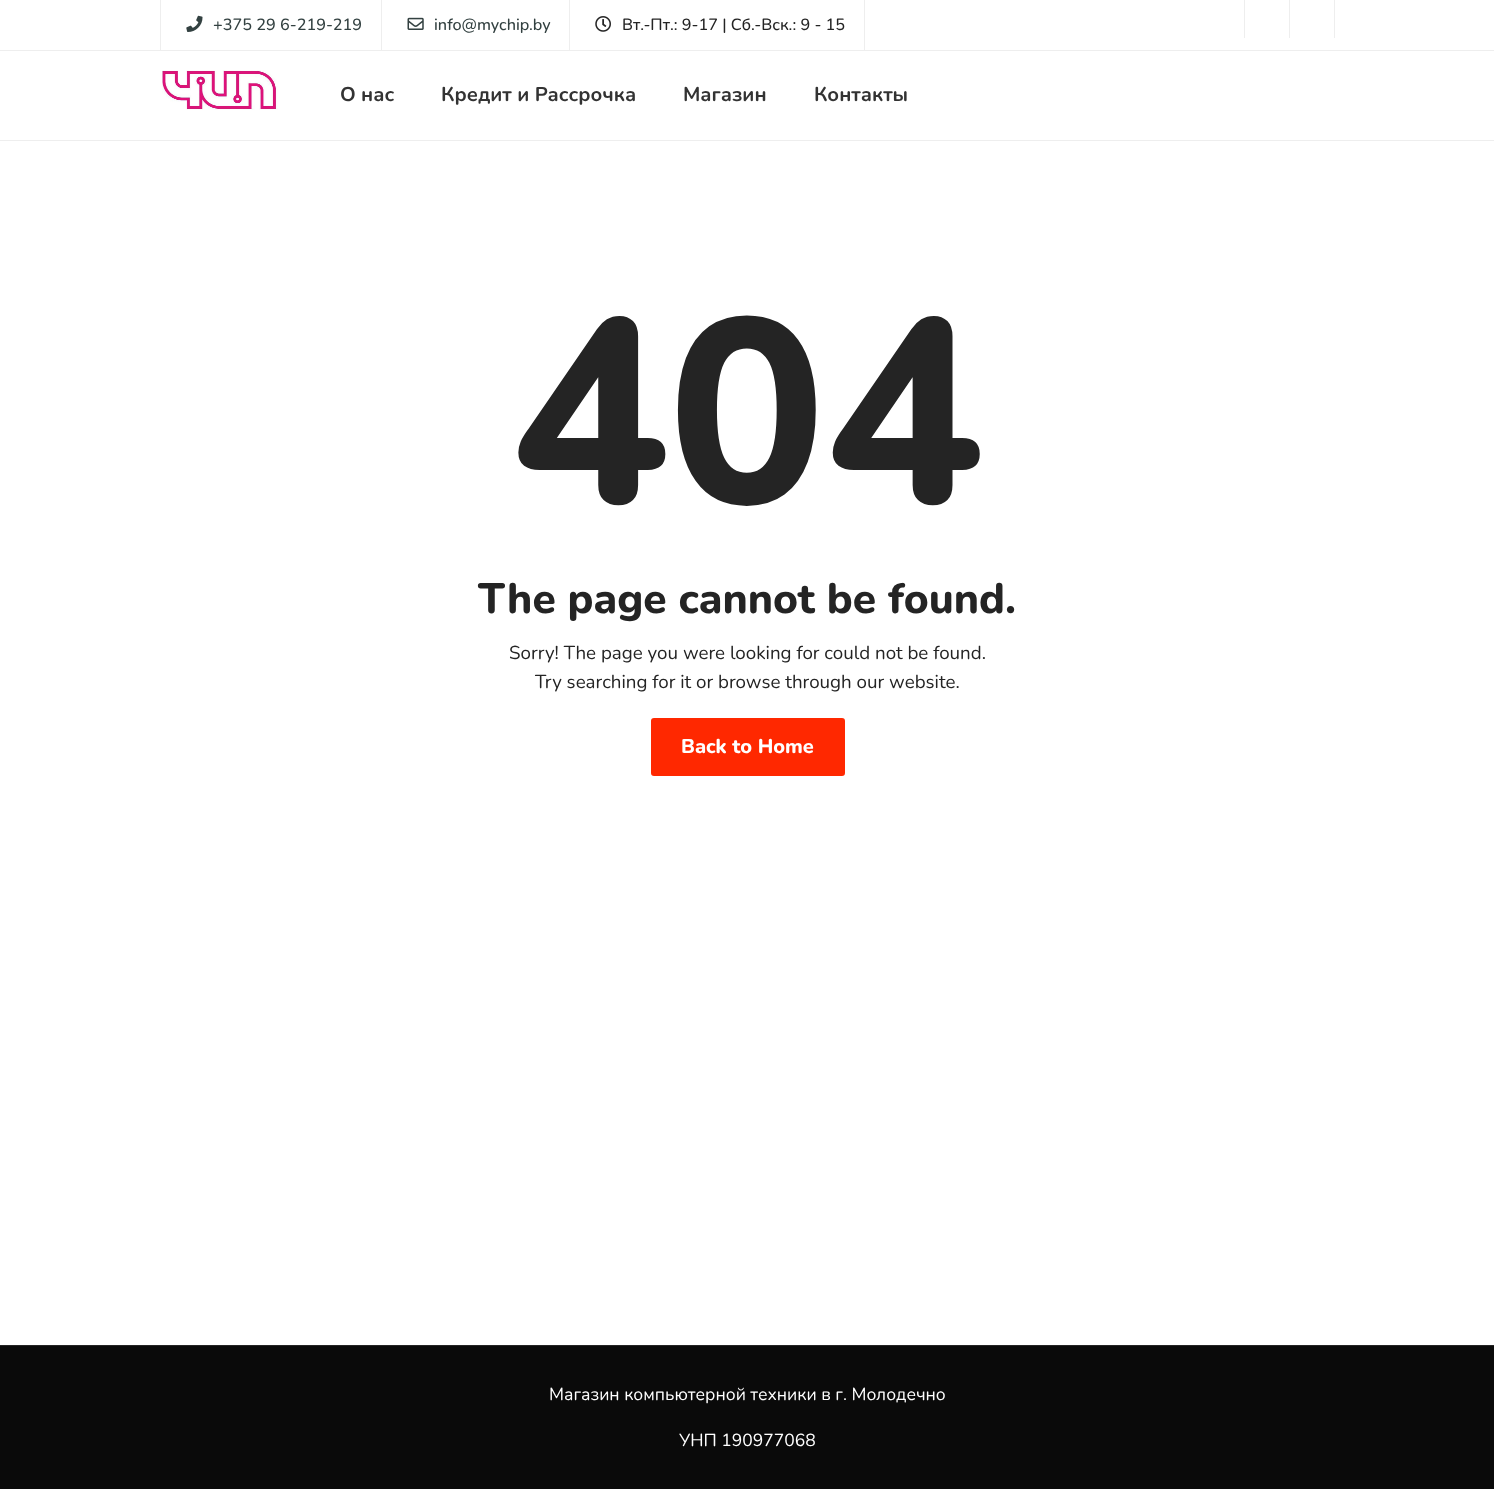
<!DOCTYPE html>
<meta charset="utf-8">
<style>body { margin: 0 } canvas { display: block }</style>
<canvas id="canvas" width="1494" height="1504"></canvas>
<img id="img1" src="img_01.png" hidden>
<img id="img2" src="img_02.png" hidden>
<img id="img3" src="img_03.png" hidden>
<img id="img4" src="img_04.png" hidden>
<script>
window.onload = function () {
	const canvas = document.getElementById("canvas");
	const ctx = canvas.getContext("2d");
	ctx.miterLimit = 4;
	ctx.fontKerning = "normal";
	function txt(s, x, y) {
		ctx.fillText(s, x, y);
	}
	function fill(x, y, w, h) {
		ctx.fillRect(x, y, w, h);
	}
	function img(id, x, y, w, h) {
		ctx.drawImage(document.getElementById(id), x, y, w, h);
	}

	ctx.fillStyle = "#FFFFFF";
	fill(0, 0, 1494, 1504);
	ctx.fillStyle = "#EEEEEE";
	fill(0, 50, 1494, 1);
	fill(160, 0, 1, 50);
	img("img1", 186, 15, 17, 17);
	fill(381, 0, 1, 50);
	img("img2", 407, 17, 17, 13);
	fill(864, 0, 1, 50);
	fill(569, 0, 1, 50);
	img("img3", 595, 16, 16, 16);
	fill(1244, 0, 1, 38);
	fill(1334, 0, 1, 38);
	fill(1289, 0, 1, 38);
	fill(0, 140, 1494, 1);
	img("img4", 162, 70, 116, 40);
	ctx.fillStyle = "#FF2800";
	ctx.beginPath();
	ctx.roundRect(649.5, 716.5, 197, 61, 4.5);
	ctx.fill();
	ctx.strokeStyle = "#FFFFFF";
	ctx.lineWidth = 3;
	ctx.stroke();
	ctx.fillStyle = "#0A0A0A";
	fill(0, 1346, 1494, 143);
	ctx.fillStyle = "#242424";
	fill(0, 1345, 1494, 1);
	ctx.font = "500 16.25px Nunito";
	ctx.fillStyle = "#334141";
	txt("+375 29 6-219-219", 213, 30);
	txt("info@mychip.by", 434, 30);
	ctx.fillStyle = "#242424";
	txt("Вт.-Пт.: 9-17 | Cб.-Вск.: 9 - 15", 622, 30);
	ctx.font = "bold 20px Nunito";
	ctx.fillStyle = "#333333";
	txt("О нас", 340, 101);
	txt("Кредит и Рассрочка", 441, 101);
	txt("Магазин", 683, 101);
	txt("Контакты", 814, 101);
	ctx.font = "800 262px Nunito";
	ctx.fillStyle = "#242424";
	txt("404", 511, 503);
	ctx.font = "800 42.5px Nunito";
	txt("The page cannot be found.", 478, 613);
	ctx.font = "200 18.75px Nunito";
	txt("Sorry! The page you were looking for could not be found.", 509, 659);
	txt("Try searching for it or browse through our website.", 535, 688);
	ctx.font = "800 20px Nunito";
	ctx.fillStyle = "#FFFFFF";
	txt("Back to Home", 681, 753);
	ctx.font = "200 17.5px Nunito";
	txt("Магазин компьютерной техники в г. Молодечно", 549, 1400);
	txt("УНП 190977068", 679, 1446);
};
</script>
